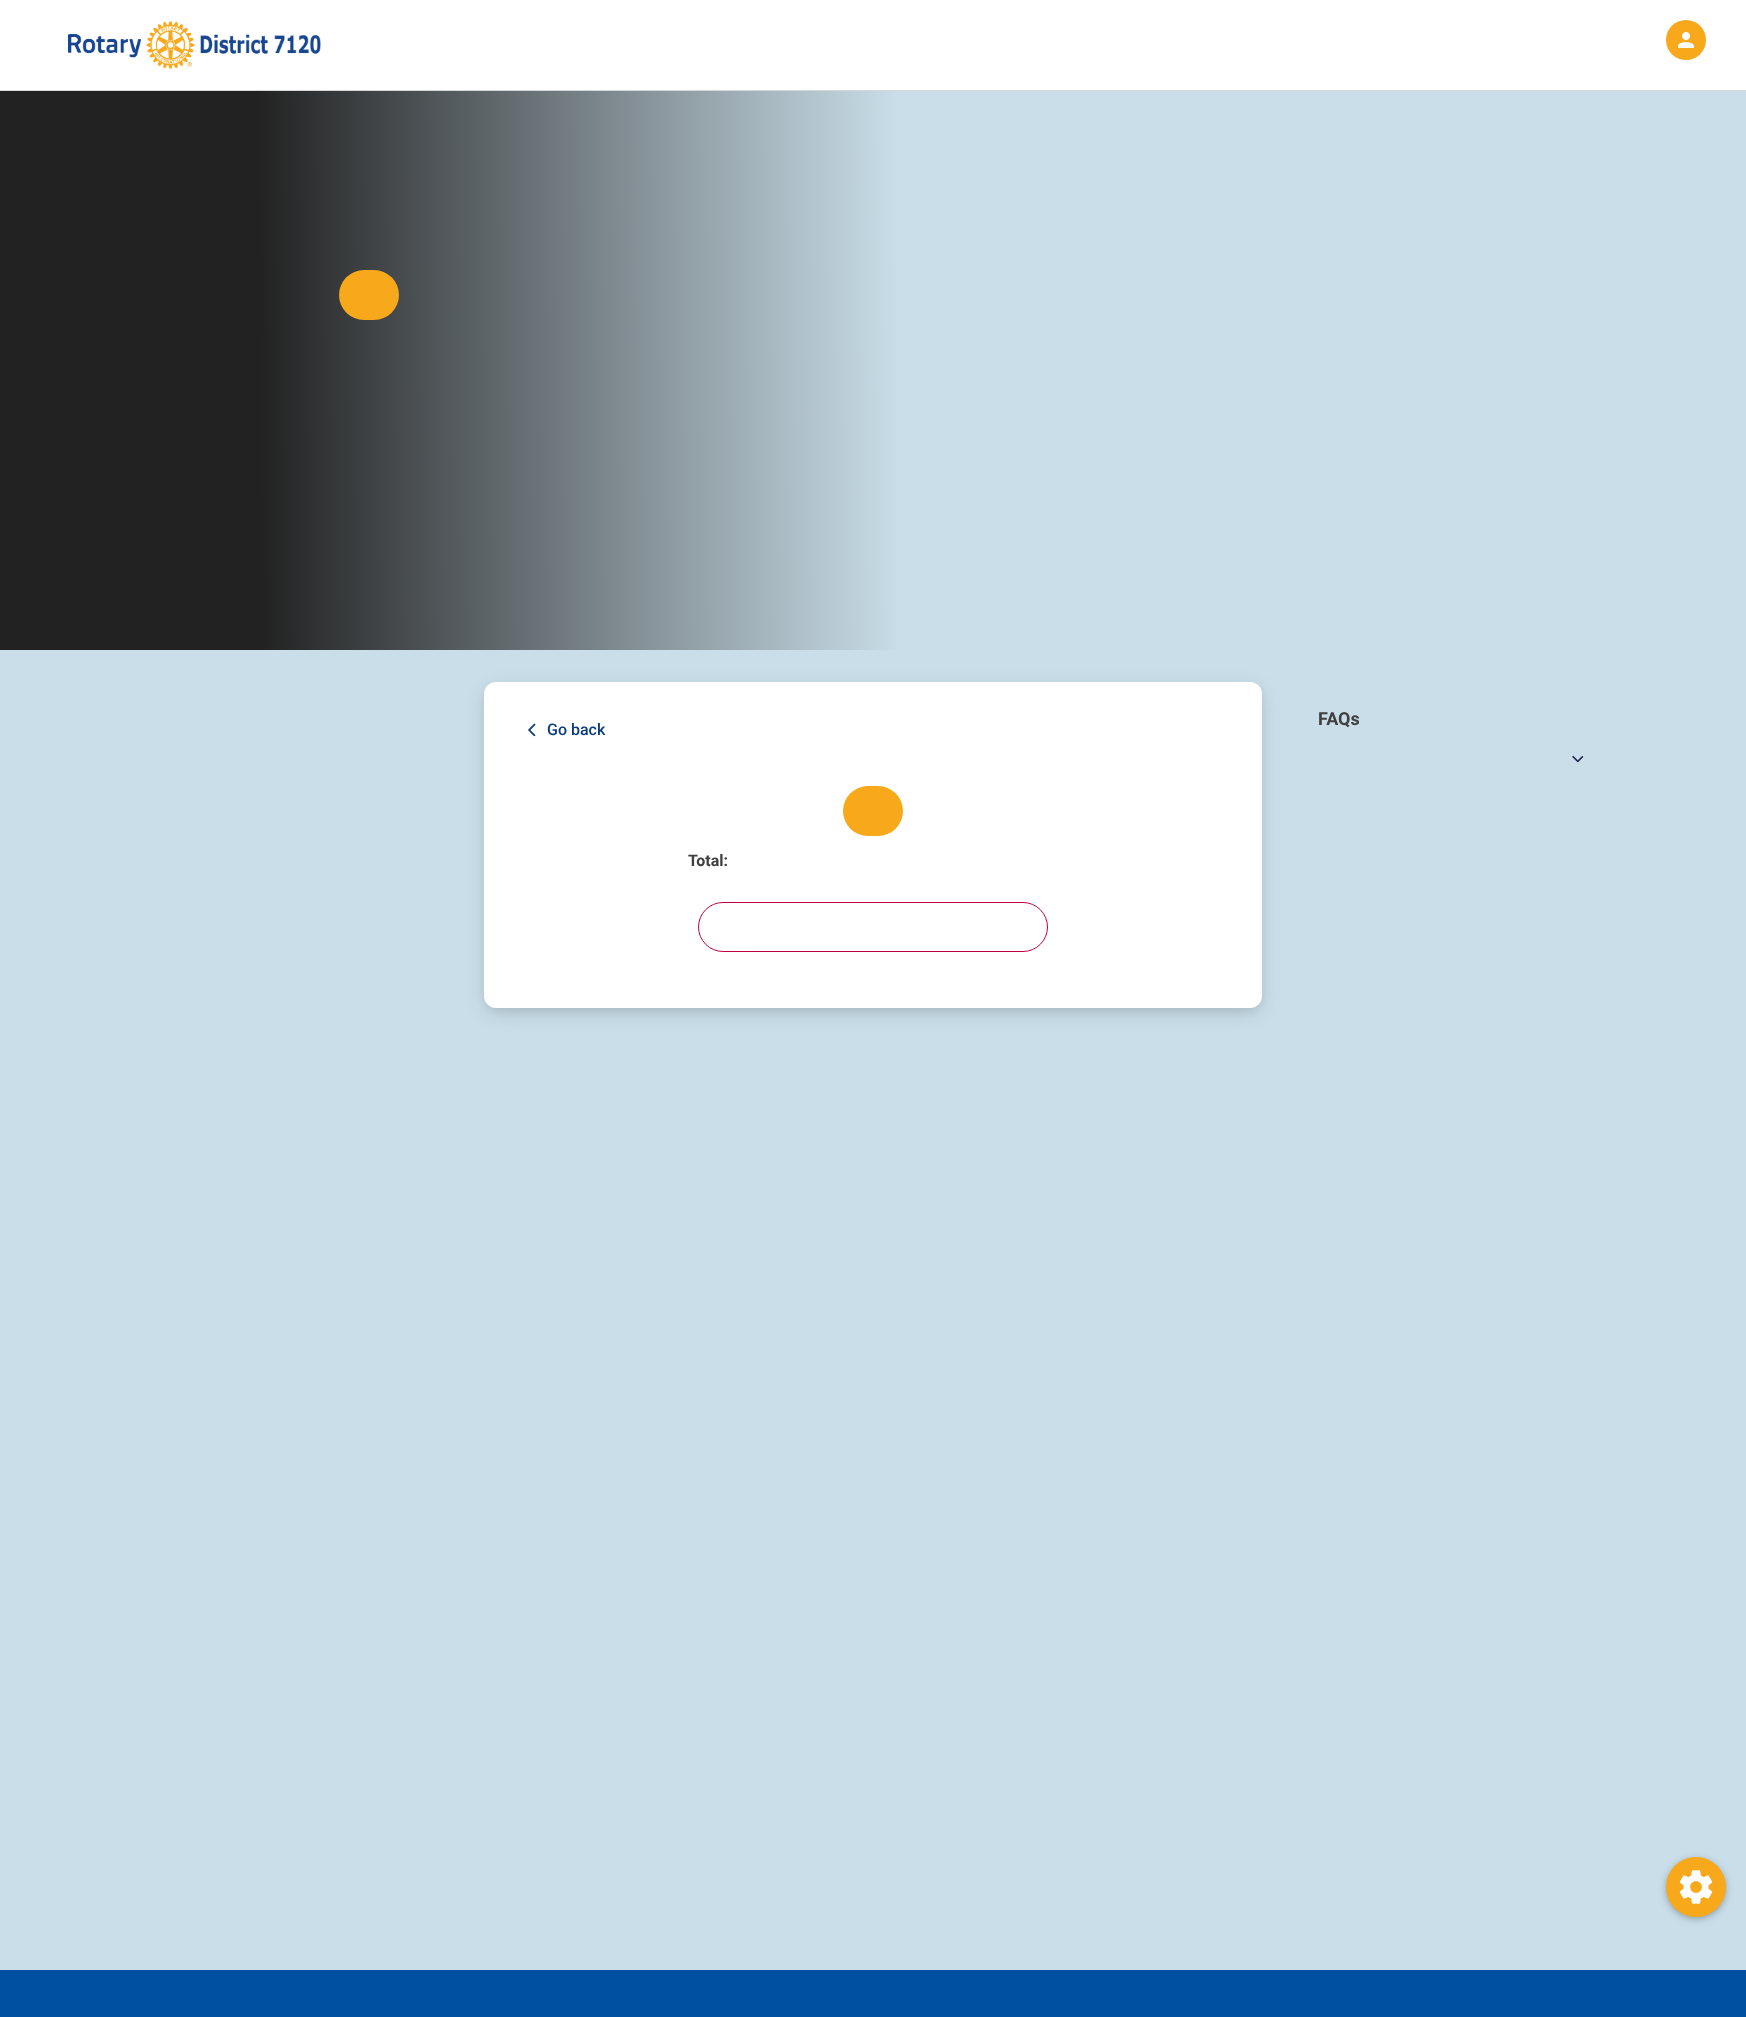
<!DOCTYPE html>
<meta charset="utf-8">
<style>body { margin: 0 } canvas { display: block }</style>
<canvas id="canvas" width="1746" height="2017"></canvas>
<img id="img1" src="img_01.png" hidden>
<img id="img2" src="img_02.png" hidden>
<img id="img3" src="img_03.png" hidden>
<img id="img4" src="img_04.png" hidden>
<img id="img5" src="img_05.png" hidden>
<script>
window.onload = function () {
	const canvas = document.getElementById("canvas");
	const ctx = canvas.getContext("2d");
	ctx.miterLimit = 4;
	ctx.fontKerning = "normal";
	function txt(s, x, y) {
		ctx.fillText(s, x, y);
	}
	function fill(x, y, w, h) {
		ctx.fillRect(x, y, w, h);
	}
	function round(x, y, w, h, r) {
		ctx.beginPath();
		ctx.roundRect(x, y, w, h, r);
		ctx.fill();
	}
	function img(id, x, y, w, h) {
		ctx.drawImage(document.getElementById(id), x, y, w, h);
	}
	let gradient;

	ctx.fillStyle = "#C9DEE9";
	fill(0, 0, 1746, 2017);
	ctx.fillStyle = "#FFFFFF";
	fill(0, 0, 1746, 90);
	ctx.fillStyle = "#D6D6D6";
	fill(0, 90, 1746, 1);
	img("img1", 68, 21, 253, 48);
	ctx.fillStyle = "#F7A81B";
	ctx.beginPath();
	ctx.arc(1686, 40, 20, 0, Math.PI * 2);
	ctx.fill();
	img("img2", 1678, 32, 16, 16);
	ctx.fillStyle = "#0050A2";
	fill(0, 1970, 1746, 47);
	gradient = ctx.createLinearGradient(-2.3, 377, 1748, 363);
	gradient.addColorStop(0.15, "#222222");
	gradient.addColorStop(0.52, "#CBE0EB");
	ctx.fillStyle = gradient;
	fill(0, 91, 896, 559);
	ctx.fillStyle = "#F7A81B";
	round(339, 270, 60, 50, 25);
	img("img3", 1572, 755, 12, 8);
	ctx.fillStyle = "rgba(26, 26, 26, 0.06)";
	ctx.filter = "blur(3px)";
	ctx.beginPath();
	ctx.roundRect(484, 686, 778, 326, 12);
	ctx.fill();
	ctx.filter = "none";
	ctx.fillStyle = "rgba(26, 26, 26, 0.14)";
	ctx.filter = "blur(10px)";
	ctx.beginPath();
	ctx.roundRect(486, 690, 774, 322, 10);
	ctx.fill();
	ctx.filter = "none";
	ctx.fillStyle = "#FFFFFF";
	round(484, 682, 778, 326, 12);
	img("img4", 528, 723, 8, 14);
	ctx.fillStyle = "#F7A81B";
	round(843, 786, 60, 50, 25);
	ctx.beginPath();
	ctx.roundRect(698.5, 902.5, 349, 49, 24.5);
	ctx.strokeStyle = "#C10042";
	ctx.stroke();
	ctx.fillStyle = "rgba(0, 0, 0, 0.12)";
	ctx.filter = "blur(5px)";
	ctx.beginPath();
	ctx.roundRect(1666, 1859, 60, 60, 30);
	ctx.fill();
	ctx.filter = "none";
	ctx.fillStyle = "rgba(0, 0, 0, 0.16)";
	ctx.filter = "blur(2.5px)";
	ctx.beginPath();
	ctx.roundRect(1666, 1859, 60, 60, 30);
	ctx.fill();
	ctx.filter = "none";
	ctx.fillStyle = "#F7A81B";
	ctx.beginPath();
	ctx.arc(1696, 1887, 30, 0, Math.PI * 2);
	ctx.fill();
	img("img5", 1679, 1870, 34, 34);
	ctx.font = "bold 18px Roboto";
	ctx.fillStyle = "#404040";
	txt("FAQs", 1318, 725);
	ctx.font = "500 16px Roboto";
	ctx.fillStyle = "#0C3C7C";
	txt("Go back", 547, 735);
	ctx.font = "bold 16px Roboto";
	ctx.fillStyle = "#404040";
	txt("Total:", 688, 866);
};
</script>
